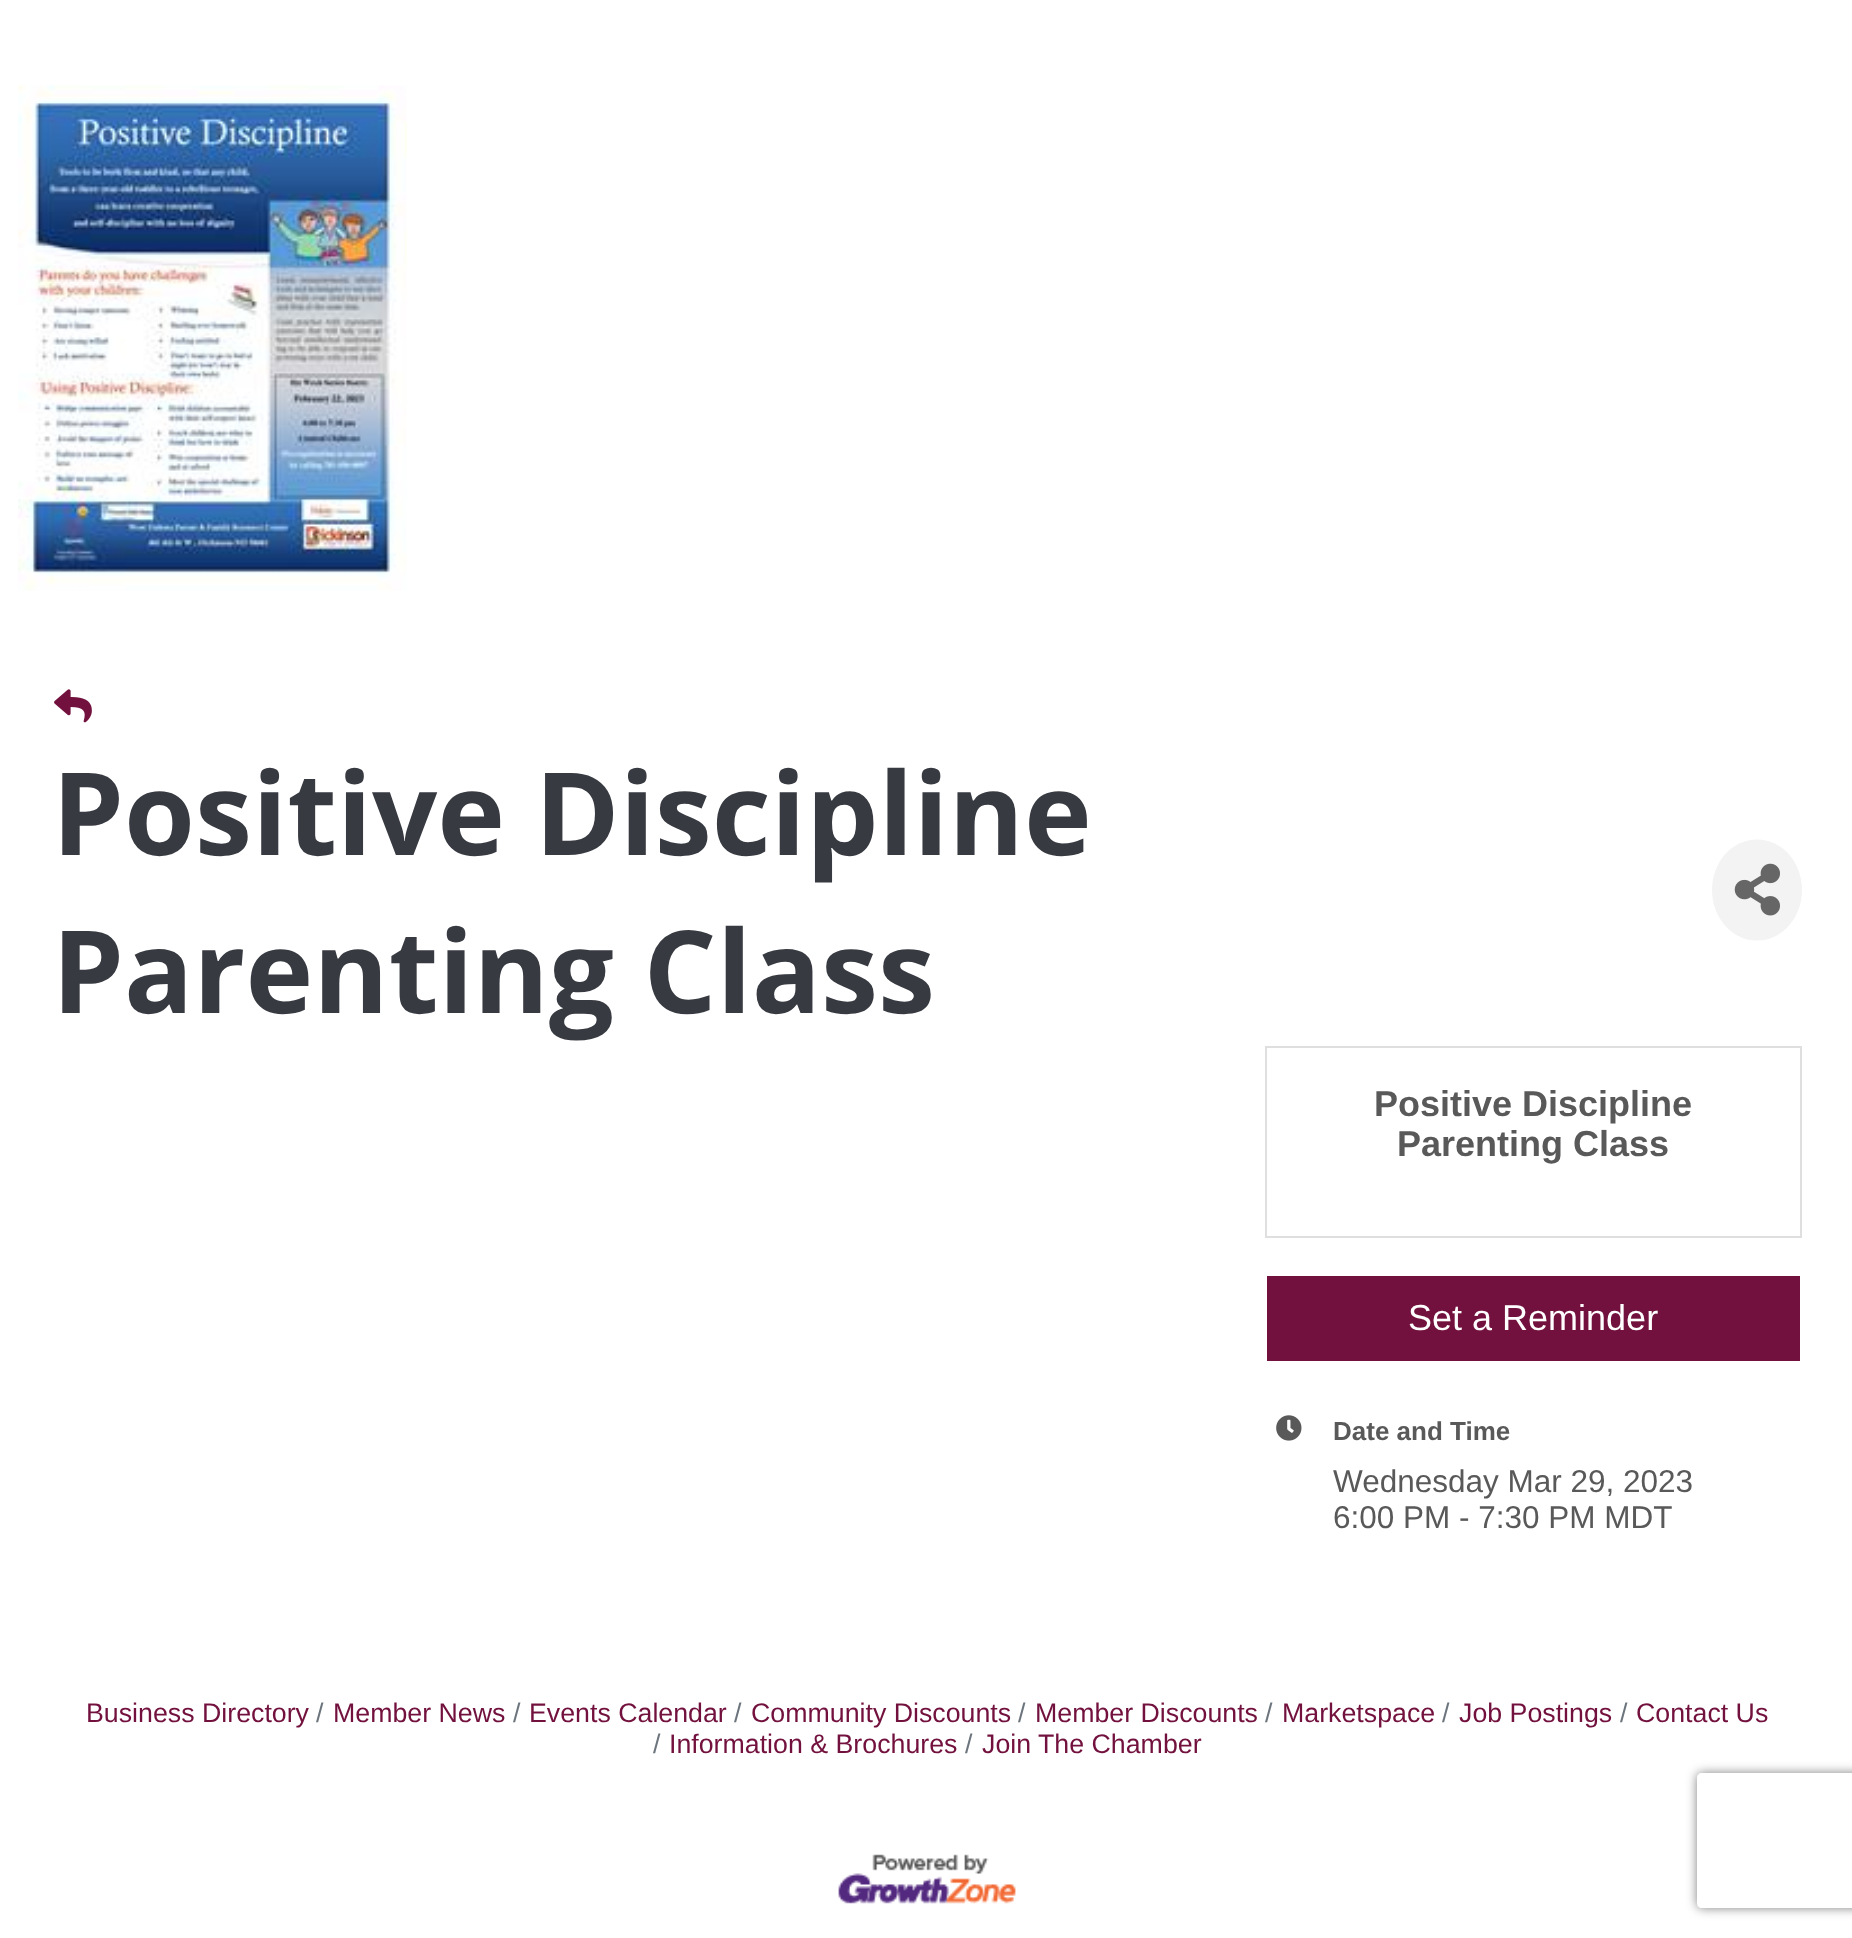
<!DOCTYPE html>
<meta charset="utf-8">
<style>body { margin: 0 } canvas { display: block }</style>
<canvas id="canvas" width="1852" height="1938"></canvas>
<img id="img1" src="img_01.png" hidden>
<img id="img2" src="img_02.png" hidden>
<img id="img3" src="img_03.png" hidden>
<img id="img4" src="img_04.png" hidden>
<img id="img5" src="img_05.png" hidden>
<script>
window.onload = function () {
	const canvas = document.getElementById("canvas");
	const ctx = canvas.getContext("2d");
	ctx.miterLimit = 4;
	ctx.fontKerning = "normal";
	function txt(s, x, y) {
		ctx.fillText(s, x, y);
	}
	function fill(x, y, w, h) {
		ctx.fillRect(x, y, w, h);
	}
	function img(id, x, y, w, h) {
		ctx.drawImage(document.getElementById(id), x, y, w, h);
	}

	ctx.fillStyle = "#FFFFFF";
	fill(0, 0, 1852, 1938);
	img("img1", 18, 85, 389, 506);
	img("img2", 54, 689, 38, 34);
	ctx.fillStyle = "#F3F3F3";
	ctx.beginPath();
	ctx.ellipse(1757, 890, 45, 50.5, 0, 0, Math.PI * 2);
	ctx.fill();
	img("img3", 1734, 863, 46, 53);
	ctx.strokeStyle = "#DFDFDF";
	ctx.lineWidth = 2;
	ctx.strokeRect(1266, 1047, 535, 190);
	ctx.fillStyle = "#72113D";
	fill(1267, 1276, 533, 85);
	img("img4", 1276, 1415, 26, 26);
	img("img5", 838, 1854, 178, 50);
	ctx.save();
	ctx.beginPath();
	ctx.moveTo(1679, 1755);
	ctx.lineTo(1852, 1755);
	ctx.lineTo(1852, 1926);
	ctx.lineTo(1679, 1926);
	ctx.closePath();
	ctx.moveTo(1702, 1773);
	ctx.lineTo(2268, 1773);
	ctx.bezierCurveTo(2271, 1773, 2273, 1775, 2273, 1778);
	ctx.lineTo(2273, 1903);
	ctx.bezierCurveTo(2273, 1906, 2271, 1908, 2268, 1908);
	ctx.lineTo(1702, 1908);
	ctx.bezierCurveTo(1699, 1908, 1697, 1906, 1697, 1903);
	ctx.lineTo(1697, 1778);
	ctx.bezierCurveTo(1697, 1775, 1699, 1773, 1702, 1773);
	ctx.closePath();
	ctx.clip("evenodd");
	ctx.fillStyle = "#808080";
	ctx.filter = "blur(5.5px)";
	ctx.beginPath();
	ctx.roundRect(1697, 1773, 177, 135, 5);
	ctx.fill();
	ctx.filter = "none";
	ctx.restore();
	ctx.font = "bold 114.75px Open Sans";
	ctx.fillStyle = "#373A41";
	txt("Positive Discipline", 52, 855);
	txt("Parenting Class", 52, 1013);
	ctx.font = "bold 36px Liberation Sans";
	ctx.fillStyle = "#595959";
	txt("Positive Discipline", 1374, 1116);
	txt("Parenting Class", 1397, 1156);
	ctx.font = "36px Liberation Sans";
	ctx.fillStyle = "#FFFFFF";
	txt("Set a Reminder", 1408, 1330);
	ctx.font = "bold 26px Liberation Sans";
	ctx.fillStyle = "#595959";
	txt("Date and Time", 1333, 1440);
	ctx.font = "31.5px Liberation Sans";
	txt("Wednesday Mar 29, 2023", 1333, 1492);
	txt("6:00 PM - 7:30 PM MDT", 1333, 1528);
	ctx.font = "26.75px Liberation Sans";
	ctx.fillStyle = "#72113D";
	txt("Business Directory", 86, 1722);
	ctx.fillStyle = "#6C757D";
	txt("/", 316, 1722);
	ctx.fillStyle = "#72113D";
	txt("Member News", 333, 1722);
	ctx.fillStyle = "#6C757D";
	txt("/", 513, 1722);
	ctx.fillStyle = "#72113D";
	txt("Events Calendar", 529, 1722);
	ctx.fillStyle = "#6C757D";
	txt("/", 734, 1722);
	ctx.fillStyle = "#72113D";
	txt("Community Discounts", 751, 1722);
	ctx.fillStyle = "#6C757D";
	txt("/", 1018, 1722);
	ctx.fillStyle = "#72113D";
	txt("Member Discounts", 1035, 1722);
	ctx.fillStyle = "#6C757D";
	txt("/", 1265, 1722);
	ctx.fillStyle = "#72113D";
	txt("Marketspace", 1282, 1722);
	ctx.fillStyle = "#6C757D";
	txt("/", 1442, 1722);
	ctx.fillStyle = "#72113D";
	txt("Job Postings", 1459, 1722);
	ctx.fillStyle = "#6C757D";
	txt("/", 1620, 1722);
	ctx.fillStyle = "#72113D";
	txt("Contact Us", 1636, 1722);
	ctx.fillStyle = "#6C757D";
	txt("/", 653, 1753);
	ctx.fillStyle = "#72113D";
	txt("Information & Brochures", 669, 1753);
	ctx.fillStyle = "#6C757D";
	txt("/", 965, 1753);
	ctx.fillStyle = "#72113D";
	txt("Join The Chamber", 982, 1753);
};
</script>
